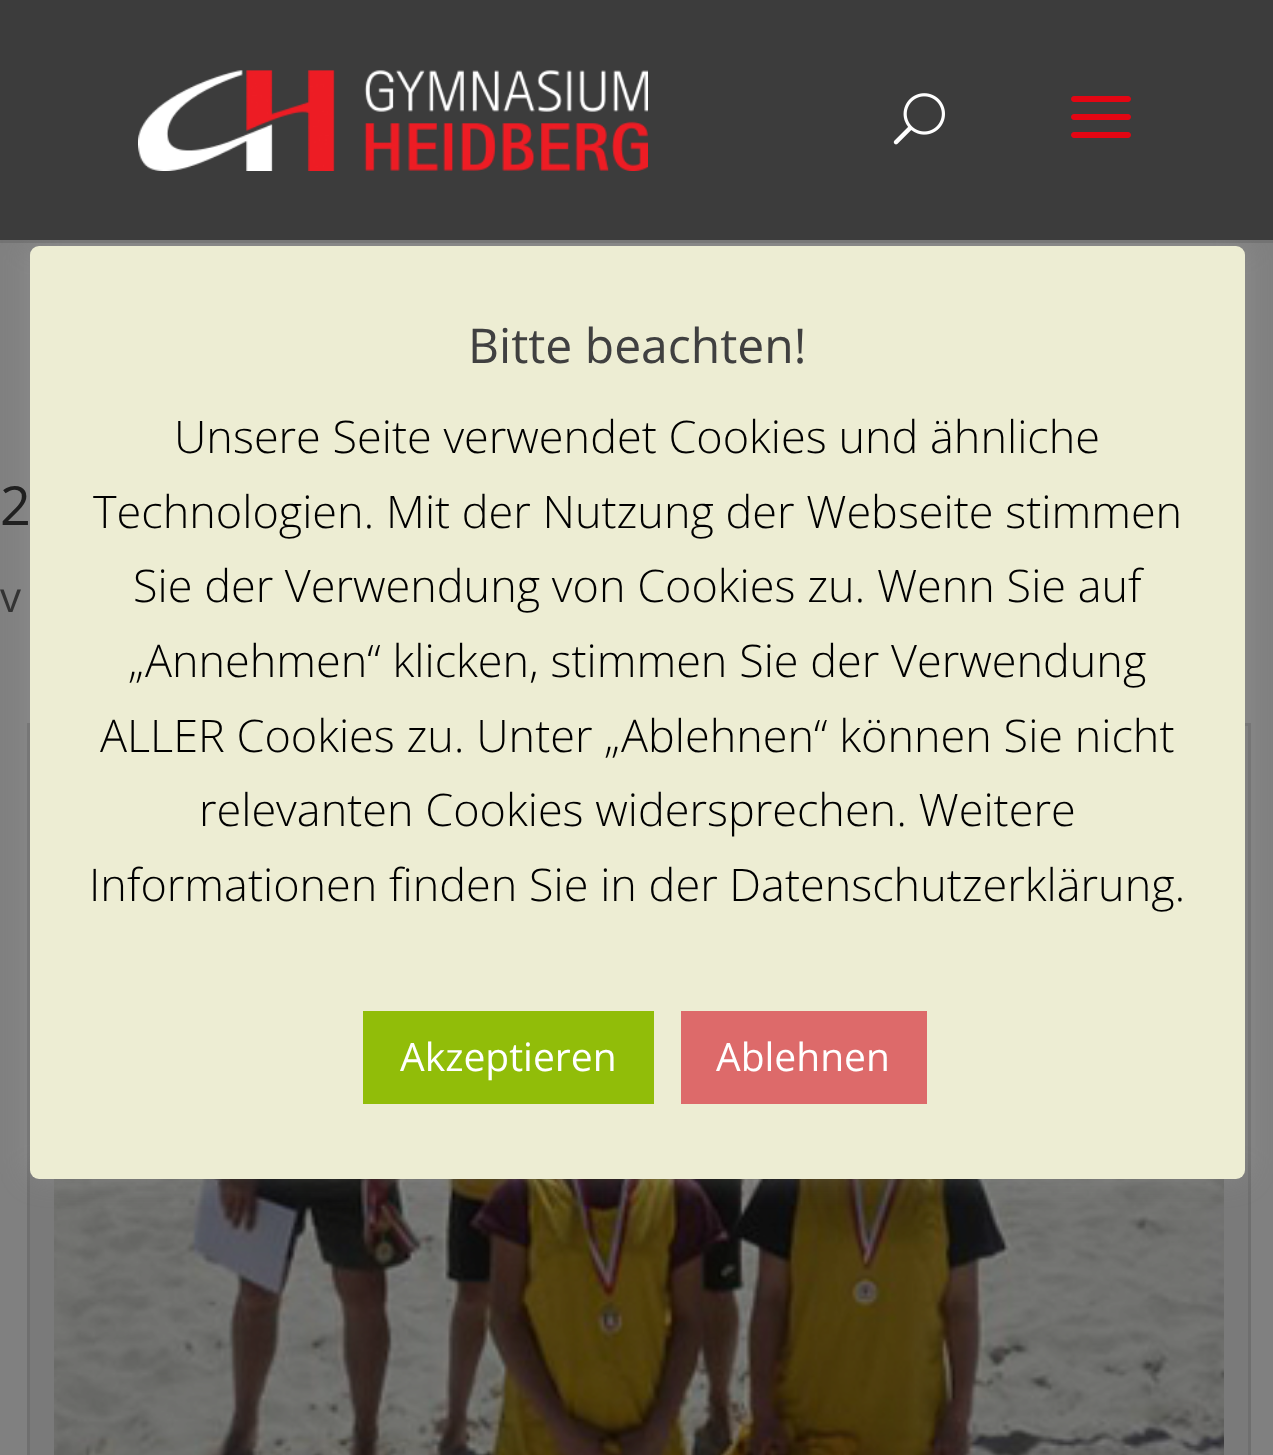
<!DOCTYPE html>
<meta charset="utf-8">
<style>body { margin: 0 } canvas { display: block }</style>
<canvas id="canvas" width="1273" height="1455"></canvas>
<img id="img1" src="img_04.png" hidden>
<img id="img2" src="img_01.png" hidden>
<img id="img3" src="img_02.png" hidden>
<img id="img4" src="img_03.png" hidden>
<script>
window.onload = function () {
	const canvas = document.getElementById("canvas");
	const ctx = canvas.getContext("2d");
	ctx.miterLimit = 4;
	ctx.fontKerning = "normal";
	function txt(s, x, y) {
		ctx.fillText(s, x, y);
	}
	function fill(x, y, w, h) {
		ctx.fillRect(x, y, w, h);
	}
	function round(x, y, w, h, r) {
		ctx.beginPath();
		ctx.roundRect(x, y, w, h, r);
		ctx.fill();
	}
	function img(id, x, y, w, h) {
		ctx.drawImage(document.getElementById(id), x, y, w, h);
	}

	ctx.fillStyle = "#808080";
	fill(0, 0, 1273, 1455);
	ctx.fillStyle = "#7A7A7A";
	ctx.beginPath();
	ctx.rect(28.5, 724.5, 1221, 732);
	ctx.fill();
	ctx.strokeStyle = "#6F6F6F";
	ctx.lineWidth = 3;
	ctx.stroke();
	img("img1", 54, 1179, 1170, 276);
	ctx.fillStyle = "rgba(172, 171, 171, 0.3)";
	ctx.filter = "blur(15px)";
	ctx.beginPath();
	ctx.roundRect(30, 243, 1215, 933, 9);
	ctx.fill();
	ctx.filter = "none";
	ctx.fillStyle = "rgba(0, 0, 0, 0.1)";
	fill(0, 240, 1273, 3);
	ctx.fillStyle = "#3C3C3C";
	fill(0, 0, 1273, 240);
	img("img2", 138, 70, 510, 101);
	img("img3", 893, 93, 52, 52);
	img("img4", 1071, 96, 60, 42);
	ctx.fillStyle = "#EDEDD3";
	round(30, 246, 1215, 933, 9);
	ctx.fillStyle = "#91BD09";
	fill(363, 1011, 291, 93);
	ctx.fillStyle = "#DD6A6A";
	fill(681, 1011, 246, 93);
	ctx.font = "54px Open Sans";
	ctx.fillStyle = "#202020";
	txt("2", 0, 525);
	ctx.font = "42px Open Sans";
	ctx.fillStyle = "#333333";
	txt("v", 0, 612);
	ctx.font = "48px Open Sans";
	ctx.fillStyle = "#404040";
	txt("Bitte beachten!", 468, 363);
	ctx.font = "300 45px Open Sans";
	ctx.fillStyle = "#000000";
	txt("Unsere Seite verwendet Cookies und ähnliche", 174, 453);
	txt("Technologien. Mit der Nutzung der Webseite stimmen", 93, 528);
	txt("Sie der Verwendung von Cookies zu. Wenn Sie auf", 133, 602);
	txt("„Annehmen“ klicken, stimmen Sie der Verwendung", 128, 677);
	txt("ALLER Cookies zu. Unter „Ablehnen“ können Sie nicht", 100, 752);
	txt("relevanten Cookies widersprechen. Weitere", 199, 826);
	txt("Informationen finden Sie in der Datenschutzerklärung.", 89, 901);
	ctx.font = "39px Open Sans";
	ctx.fillStyle = "#FFFFFF";
	txt("Akzeptieren", 400, 1071);
	txt("Ablehnen", 716, 1071);
};
</script>
